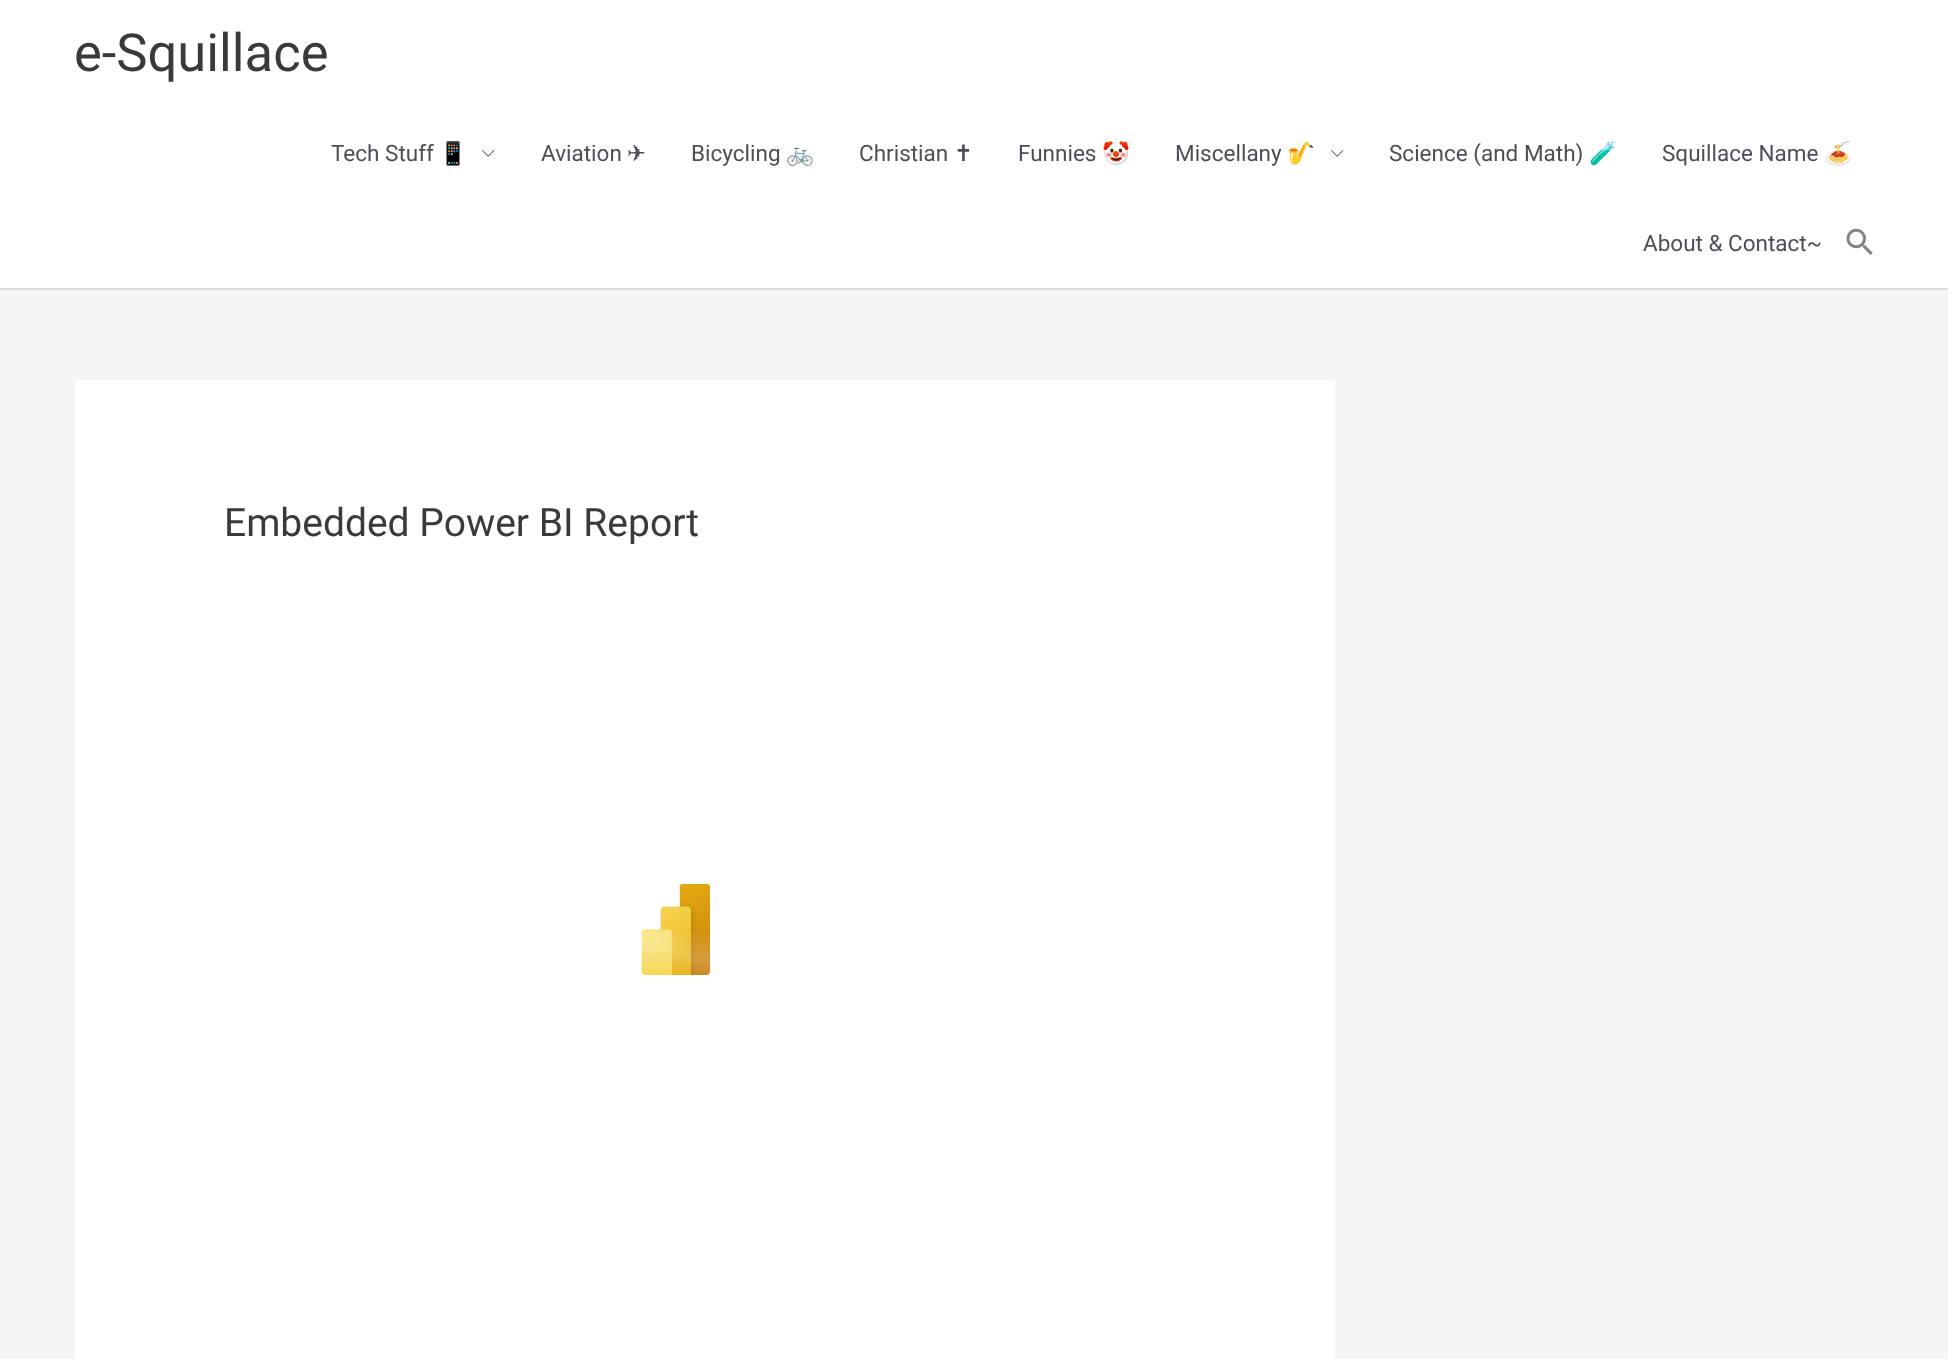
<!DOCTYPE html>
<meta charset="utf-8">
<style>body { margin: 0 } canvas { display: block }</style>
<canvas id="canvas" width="1948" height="1359"></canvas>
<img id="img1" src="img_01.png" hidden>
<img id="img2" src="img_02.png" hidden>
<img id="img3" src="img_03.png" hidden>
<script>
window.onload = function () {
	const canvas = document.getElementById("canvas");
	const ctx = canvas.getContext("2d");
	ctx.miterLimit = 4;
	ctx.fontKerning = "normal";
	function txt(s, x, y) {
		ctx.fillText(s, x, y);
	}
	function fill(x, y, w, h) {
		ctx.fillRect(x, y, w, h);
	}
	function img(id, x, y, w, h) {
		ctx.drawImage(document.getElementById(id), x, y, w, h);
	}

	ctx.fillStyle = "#F5F5F5";
	fill(0, 0, 1948, 1359);
	ctx.fillStyle = "#FFFFFF";
	fill(0, 0, 1948, 288);
	ctx.fillStyle = "#DDDDDD";
	fill(0, 288, 1948, 2);
	img("img1", 482, 150, 13, 7);
	img("img1", 1331, 150, 13, 7);
	img("img2", 1846, 228, 27, 27);
	ctx.fillStyle = "#FFFFFF";
	fill(75, 380, 1260, 979);
	img("img3", 641, 884, 69, 91);
	ctx.font = "52.5px Roboto";
	ctx.fillStyle = "#3A3A3A";
	txt("e-Squillace", 74, 71);
	ctx.font = "22.5px Roboto";
	ctx.fillStyle = "#4B4F58";
	txt("Tech Stuff", 331, 161);
	ctx.font = "22.5px Noto Color Emoji";
	txt("📱", 439, 161);
	ctx.font = "22.5px Roboto";
	txt("Aviation", 541, 161);
	ctx.font = "22.5px DejaVu Sans";
	txt("✈", 627, 161);
	ctx.font = "22.5px Roboto";
	txt("Bicycling", 691, 161);
	ctx.font = "22.5px Noto Color Emoji";
	txt("🚲", 786, 161);
	ctx.font = "22.5px Roboto";
	txt("Christian", 859, 161);
	ctx.font = "22.5px DejaVu Sans";
	txt("✝", 954, 161);
	ctx.font = "22.5px Roboto";
	txt("Funnies", 1018, 161);
	ctx.font = "22.5px Noto Color Emoji";
	txt("🤡", 1102, 161);
	ctx.font = "22.5px Roboto";
	txt("Miscellany", 1175, 161);
	ctx.font = "22.5px Noto Color Emoji";
	txt("🎷", 1287, 161);
	ctx.font = "22.5px Roboto";
	txt("Science (and Math)", 1389, 161);
	ctx.font = "22.5px Noto Color Emoji";
	txt("🧪", 1589, 161);
	ctx.font = "22.5px Roboto";
	txt("Squillace Name", 1662, 161);
	ctx.font = "22.5px Noto Color Emoji";
	txt("🍝", 1824, 161);
	ctx.font = "22.5px Roboto";
	txt("About & Contact~", 1643, 251);
	ctx.font = "39px Roboto";
	ctx.fillStyle = "#3A3A3A";
	txt("Embedded Power BI Report", 224, 536);
};
</script>
